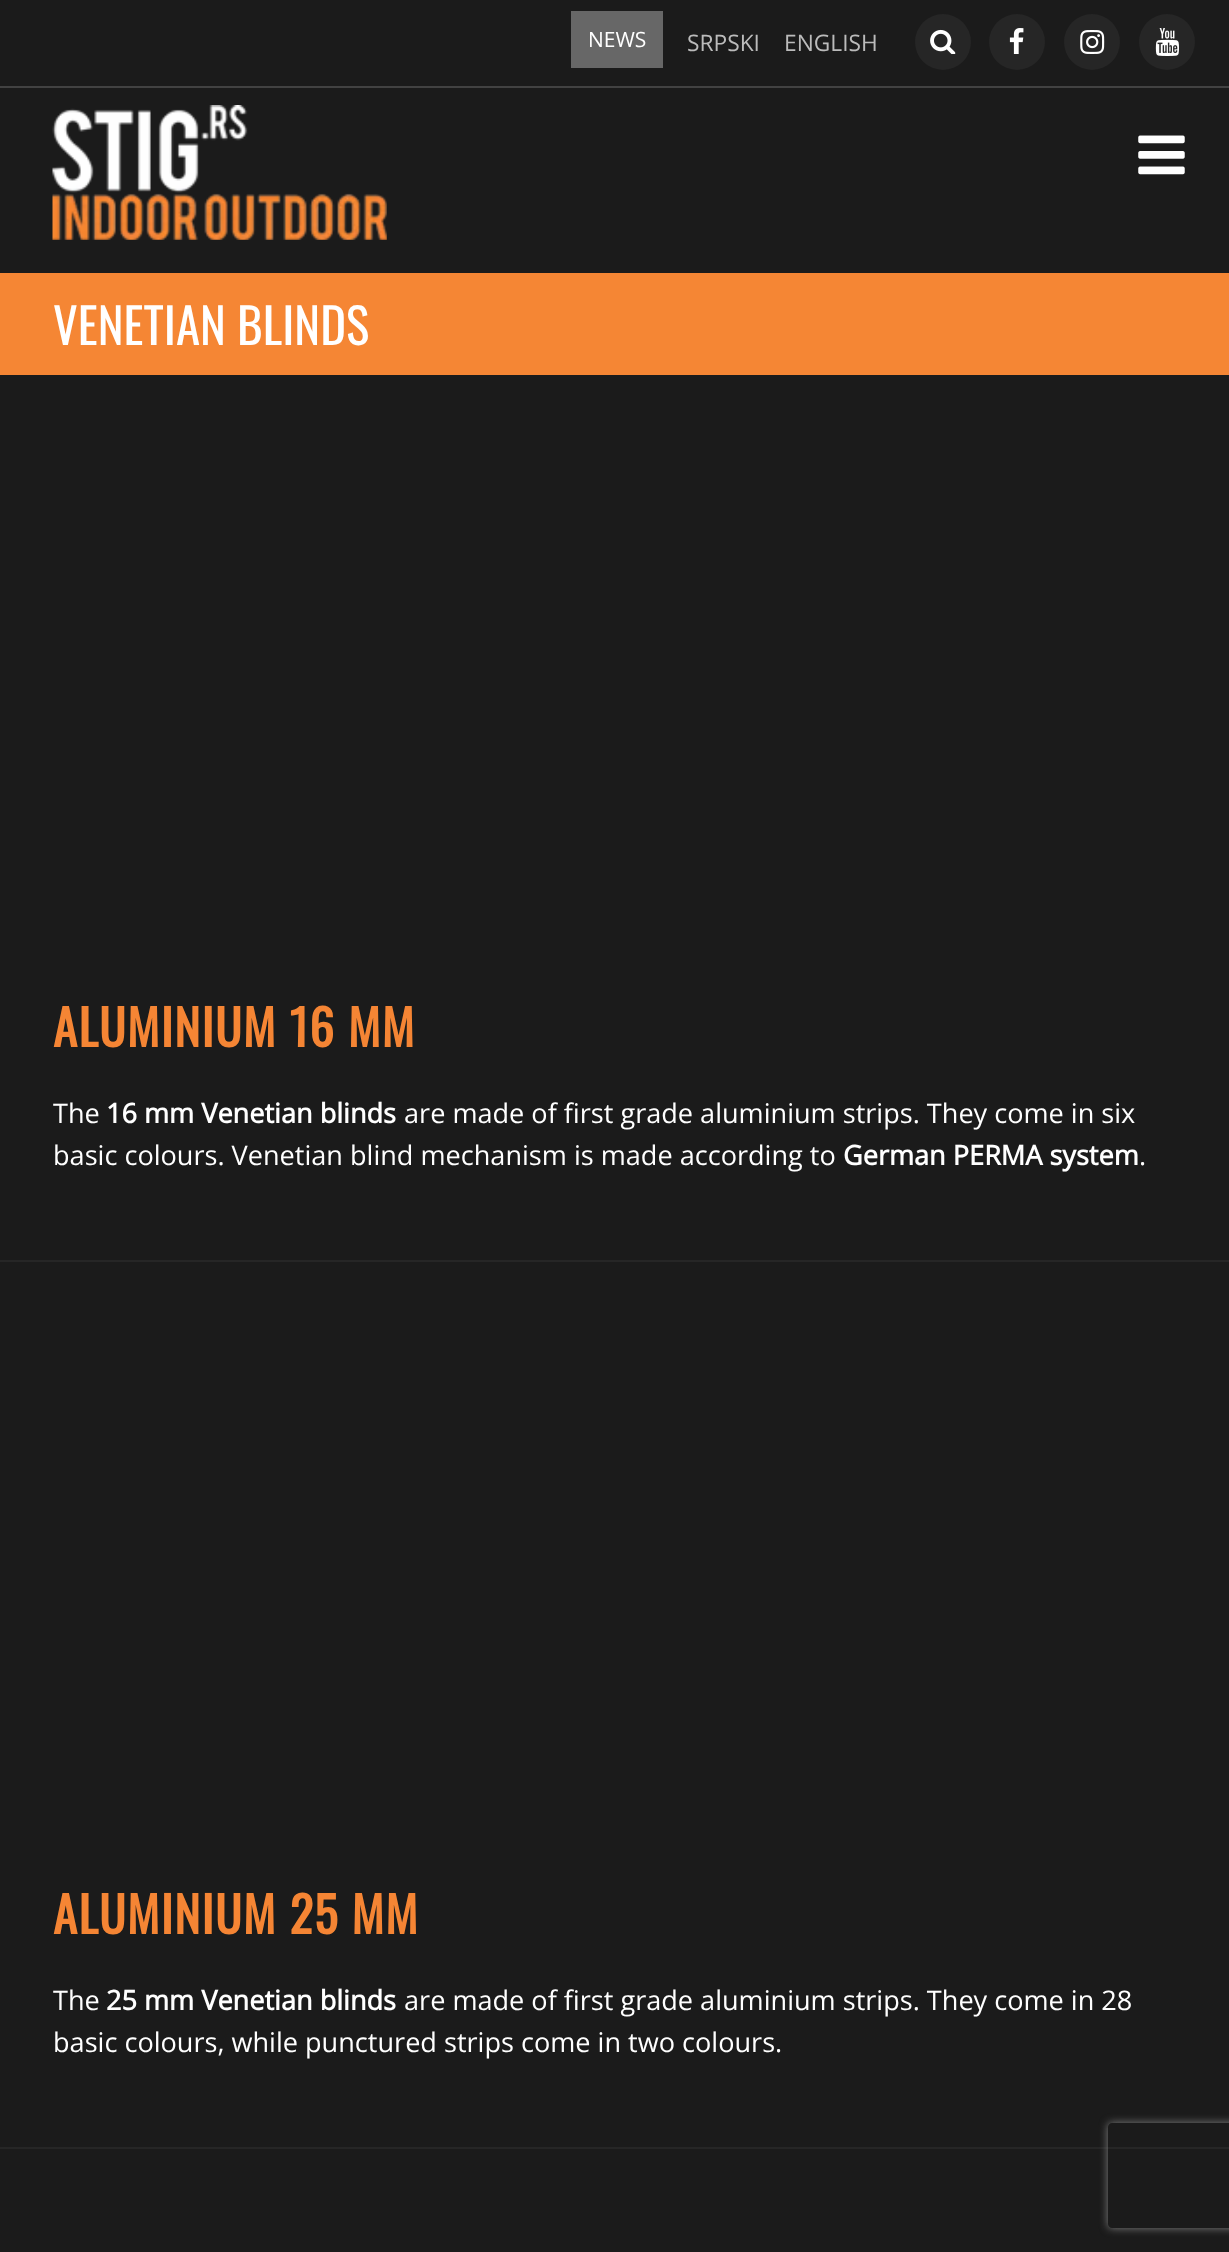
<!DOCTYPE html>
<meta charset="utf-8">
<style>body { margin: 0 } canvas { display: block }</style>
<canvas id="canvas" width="1229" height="2252"></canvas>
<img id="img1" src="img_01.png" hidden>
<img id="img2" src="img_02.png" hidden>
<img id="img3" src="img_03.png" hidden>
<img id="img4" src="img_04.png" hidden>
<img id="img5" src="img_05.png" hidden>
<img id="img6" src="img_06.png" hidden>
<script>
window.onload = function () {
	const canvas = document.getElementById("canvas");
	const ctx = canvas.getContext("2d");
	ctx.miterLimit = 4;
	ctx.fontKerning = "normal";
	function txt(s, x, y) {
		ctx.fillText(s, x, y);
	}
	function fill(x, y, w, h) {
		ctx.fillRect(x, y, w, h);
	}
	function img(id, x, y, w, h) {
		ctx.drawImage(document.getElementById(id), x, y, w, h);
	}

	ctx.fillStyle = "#1B1B1B";
	fill(0, 0, 1229, 2252);
	ctx.fillStyle = "#424242";
	fill(0, 86, 1229, 2);
	ctx.fillStyle = "#676767";
	fill(571, 11, 92, 57);
	ctx.fillStyle = "#262626";
	ctx.beginPath();
	ctx.arc(943, 42, 28, 0, Math.PI * 2);
	ctx.fill();
	img("img1", 930, 29, 26, 25);
	ctx.beginPath();
	ctx.arc(1017, 42, 28, 0, Math.PI * 2);
	ctx.fill();
	img("img2", 1009, 28, 15, 26);
	ctx.beginPath();
	ctx.arc(1092, 42, 28, 0, Math.PI * 2);
	ctx.fill();
	img("img3", 1080, 30, 25, 24);
	ctx.beginPath();
	ctx.arc(1167, 42, 28, 0, Math.PI * 2);
	ctx.fill();
	img("img4", 1155, 28, 24, 28);
	img("img5", 52, 105, 335, 135);
	img("img6", 1138, 135, 47, 40);
	ctx.fillStyle = "#F58634";
	fill(0, 273, 1229, 102);
	ctx.fillStyle = "#262626";
	fill(0, 1260, 1229, 2);
	fill(0, 2147, 1229, 2);
	ctx.save();
	ctx.beginPath();
	ctx.moveTo(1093, 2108);
	ctx.lineTo(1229, 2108);
	ctx.lineTo(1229, 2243);
	ctx.lineTo(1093, 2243);
	ctx.closePath();
	ctx.moveTo(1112, 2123);
	ctx.lineTo(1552, 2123);
	ctx.bezierCurveTo(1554, 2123, 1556, 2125, 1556, 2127);
	ctx.lineTo(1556, 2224);
	ctx.bezierCurveTo(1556, 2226, 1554, 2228, 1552, 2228);
	ctx.lineTo(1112, 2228);
	ctx.bezierCurveTo(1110, 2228, 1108, 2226, 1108, 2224);
	ctx.lineTo(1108, 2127);
	ctx.bezierCurveTo(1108, 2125, 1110, 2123, 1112, 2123);
	ctx.closePath();
	ctx.clip("evenodd");
	ctx.fillStyle = "#808080";
	ctx.filter = "blur(4.5px)";
	ctx.beginPath();
	ctx.roundRect(1108, 2123, 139, 105, 4);
	ctx.fill();
	ctx.filter = "none";
	ctx.restore();
	ctx.font = "21px Open Sans";
	ctx.fillStyle = "#FFFFFF";
	txt("NEWS", 588, 47);
	ctx.font = "22.75px Open Sans";
	ctx.fillStyle = "#BBBBBB";
	txt("SRPSKI", 687, 51);
	txt("ENGLISH", 784, 51);
	ctx.font = "49px Oswald";
	ctx.fillStyle = "#FFFFFF";
	txt("VENETIAN BLINDS", 53, 345);
	ctx.letterSpacing = "1.4px";
	ctx.font = "bold 49px Oswald";
	ctx.fillStyle = "#F58534";
	txt("ALUMINIUM 16 MM", 53, 1047);
	ctx.letterSpacing = "0px";
	ctx.font = "27.1px Open Sans";
	ctx.fillStyle = "#FFFFFF";
	txt("The", 53, 1123);
	ctx.font = "bold 27.1px Open Sans";
	txt("16 mm Venetian blinds", 106, 1123);
	ctx.font = "27.1px Open Sans";
	txt("are made of first grade aluminium strips. They come in six", 404, 1123);
	txt("basic colours. Venetian blind mechanism is made according to", 53, 1165);
	ctx.font = "bold 27.1px Open Sans";
	txt("German PERMA system", 843, 1165);
	ctx.font = "27.1px Open Sans";
	txt(".", 1139, 1165);
	ctx.letterSpacing = "1.4px";
	ctx.font = "bold 49px Oswald";
	ctx.fillStyle = "#F58534";
	txt("ALUMINIUM 25 MM", 53, 1934);
	ctx.letterSpacing = "0px";
	ctx.font = "27.1px Open Sans";
	ctx.fillStyle = "#FFFFFF";
	txt("The", 53, 2010);
	ctx.font = "bold 27.1px Open Sans";
	txt("25 mm Venetian blinds", 106, 2010);
	ctx.font = "27.1px Open Sans";
	txt("are made of first grade aluminium strips. They come in 28", 404, 2010);
	txt("basic colours, while punctured strips come in two colours.", 53, 2052);
};
</script>
